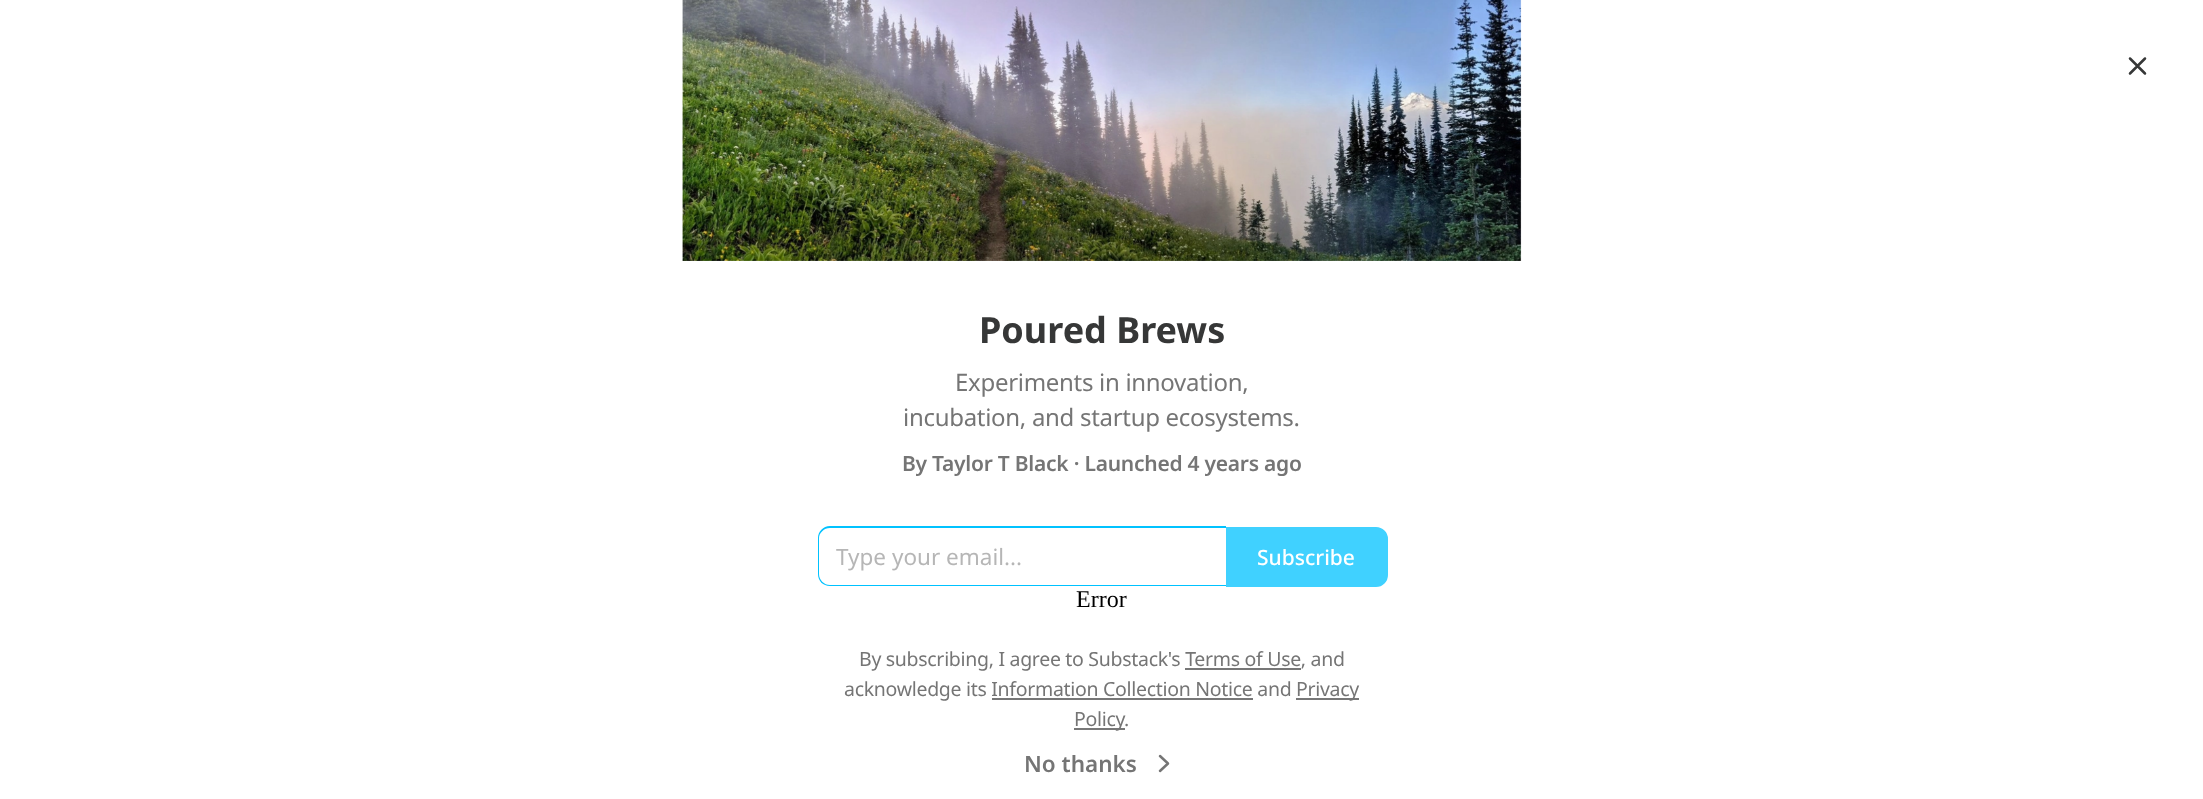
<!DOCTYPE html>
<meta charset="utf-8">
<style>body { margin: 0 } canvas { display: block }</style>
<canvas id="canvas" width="2203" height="799"></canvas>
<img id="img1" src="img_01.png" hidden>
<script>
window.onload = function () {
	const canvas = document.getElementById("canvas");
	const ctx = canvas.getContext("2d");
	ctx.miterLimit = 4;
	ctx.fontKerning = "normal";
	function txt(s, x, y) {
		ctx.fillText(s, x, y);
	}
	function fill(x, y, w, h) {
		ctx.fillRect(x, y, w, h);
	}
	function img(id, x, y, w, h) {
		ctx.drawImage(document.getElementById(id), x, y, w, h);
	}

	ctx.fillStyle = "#FFFFFF";
	fill(0, 0, 2203, 799);
	img("img1", 682, 0, 840, 261);
	ctx.beginPath();
	ctx.moveTo(2145, 58.5);
	ctx.lineTo(2130, 73.5);
	ctx.moveTo(2130, 58.5);
	ctx.lineTo(2145, 73.5);
	ctx.strokeStyle = "#363737";
	ctx.lineWidth = 2.5;
	ctx.lineCap = "round";
	ctx.lineJoin = "round";
	ctx.stroke();
	ctx.fillStyle = "#00C2FF";
	ctx.beginPath();
	ctx.moveTo(830, 526);
	ctx.lineTo(1226, 526);
	ctx.lineTo(1226, 586);
	ctx.lineTo(830, 586);
	ctx.bezierCurveTo(823, 586, 818, 581, 818, 574);
	ctx.lineTo(818, 538);
	ctx.bezierCurveTo(818, 532, 823, 526, 830, 526);
	ctx.closePath();
	ctx.moveTo(830, 528);
	ctx.lineTo(1226, 528);
	ctx.lineTo(1226, 585);
	ctx.lineTo(830, 585);
	ctx.bezierCurveTo(824, 585, 819, 580, 819, 574);
	ctx.lineTo(819, 538);
	ctx.bezierCurveTo(819, 533, 824, 528, 830, 528);
	ctx.closePath();
	ctx.fill("evenodd");
	ctx.fillStyle = "#40D1FF";
	ctx.beginPath();
	ctx.roundRect(1227, 528, 160, 58, [0, 11, 11, 0]);
	ctx.fill();
	ctx.strokeStyle = "#40D1FF";
	ctx.lineWidth = 2;
	ctx.lineJoin = "miter";
	ctx.stroke();
	ctx.fillStyle = "#777777";
	fill(1296, 698, 63, 2);
	fill(1074, 728, 51, 2);
	ctx.beginPath();
	ctx.moveTo(1160, 771);
	ctx.lineTo(1168, 763.5);
	ctx.lineTo(1160, 756);
	ctx.strokeStyle = "#757575";
	ctx.lineWidth = 2.5;
	ctx.lineJoin = "round";
	ctx.stroke();
	ctx.font = "bold 36px Noto Sans";
	ctx.fillStyle = "#363737";
	txt("Poured Brews", 979, 343);
	ctx.letterSpacing = "-0.3px";
	ctx.font = "24px Noto Sans";
	ctx.fillStyle = "#757575";
	txt("Experiments in innovation,", 955, 391);
	txt("incubation, and startup ecosystems.", 903, 426);
	ctx.letterSpacing = "-0.25px";
	ctx.font = "600 21px Noto Sans";
	txt("By Taylor T Black · Launched 4 years ago", 902, 471);
	ctx.letterSpacing = "0px";
	ctx.font = "22.5px Noto Sans";
	ctx.fillStyle = "#B6B6B6";
	txt("Type your email...", 836, 565);
	ctx.font = "500 21px Noto Sans";
	ctx.fillStyle = "#FFFFFF";
	txt("Subscribe", 1257, 565);
	ctx.font = "24px Liberation Serif";
	ctx.fillStyle = "#000000";
	txt("Error", 1076, 607);
	ctx.letterSpacing = "-0.3px";
	ctx.font = "19.5px Noto Sans";
	ctx.fillStyle = "#757575";
	txt("By subscribing, I agree to Substack's Terms of Use, and", 859, 666);
	ctx.fillStyle = "#777777";
	fill(1185, 668, 116, 2);
	ctx.fillStyle = "#757575";
	txt("acknowledge its Information Collection Notice and", 844, 696);
	txt("Privacy", 1296, 696);
	ctx.fillStyle = "#777777";
	fill(992, 698, 261, 2);
	ctx.fillStyle = "#757575";
	txt("Policy", 1074, 726);
	txt(".", 1124, 726);
	ctx.letterSpacing = "0px";
	ctx.font = "600 22.5px Noto Sans";
	txt("No thanks", 1024, 772);
};
</script>
